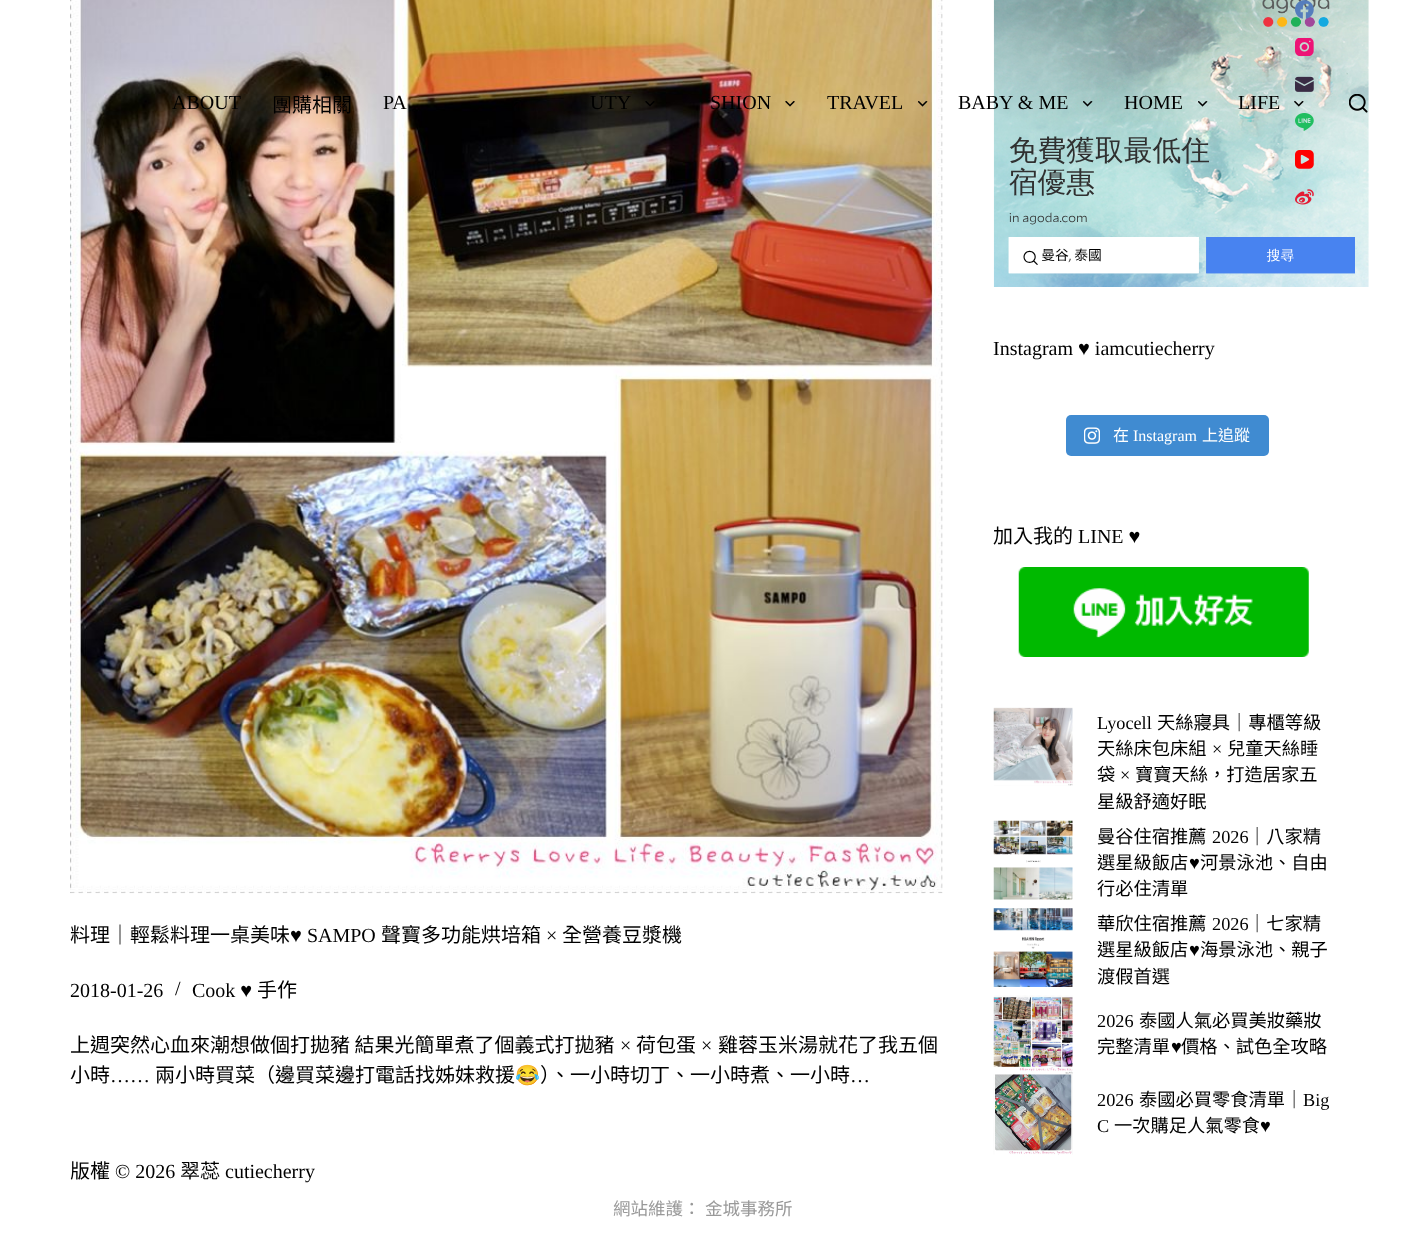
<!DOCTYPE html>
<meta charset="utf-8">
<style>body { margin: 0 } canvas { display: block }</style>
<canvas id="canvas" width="1405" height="1234"></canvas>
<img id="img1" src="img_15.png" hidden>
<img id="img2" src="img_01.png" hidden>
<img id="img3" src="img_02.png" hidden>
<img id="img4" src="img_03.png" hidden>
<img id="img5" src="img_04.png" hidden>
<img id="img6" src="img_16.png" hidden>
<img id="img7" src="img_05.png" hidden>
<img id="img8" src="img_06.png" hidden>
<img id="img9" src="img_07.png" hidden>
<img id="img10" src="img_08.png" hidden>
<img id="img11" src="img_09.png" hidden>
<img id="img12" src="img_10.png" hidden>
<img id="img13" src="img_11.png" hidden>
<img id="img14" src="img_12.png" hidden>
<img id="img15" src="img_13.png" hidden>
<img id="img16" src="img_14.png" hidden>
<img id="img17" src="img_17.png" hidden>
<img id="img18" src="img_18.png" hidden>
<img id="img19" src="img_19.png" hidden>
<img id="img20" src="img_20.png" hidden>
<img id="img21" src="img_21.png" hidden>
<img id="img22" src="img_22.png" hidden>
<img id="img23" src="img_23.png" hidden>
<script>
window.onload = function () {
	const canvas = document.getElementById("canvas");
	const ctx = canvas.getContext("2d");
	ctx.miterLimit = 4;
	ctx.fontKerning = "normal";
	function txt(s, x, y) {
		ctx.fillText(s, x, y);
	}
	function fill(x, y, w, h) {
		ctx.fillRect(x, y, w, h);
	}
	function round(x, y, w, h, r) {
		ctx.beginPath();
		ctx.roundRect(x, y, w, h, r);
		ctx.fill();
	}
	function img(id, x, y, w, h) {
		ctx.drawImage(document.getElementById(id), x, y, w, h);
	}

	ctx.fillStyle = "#FFFFFF";
	fill(0, 0, 1405, 1234);
	img("img1", 70, 0, 873, 894);
	img("img2", 514, 102, 4, 4);
	img("img3", 645, 101, 10, 6);
	img("img4", 785, 101, 10, 6);
	img("img5", 918, 101, 10, 6);
	img("img6", 993, 0, 376, 287);
	img("img7", 1083, 101, 10, 6);
	img("img8", 1198, 101, 10, 6);
	img("img9", 1294, 101, 10, 6);
	img("img10", 1295, 0, 19, 19);
	img("img11", 1295, 38, 19, 18);
	img("img12", 1295, 76, 19, 16);
	img("img13", 1295, 113, 19, 18);
	img("img14", 1295, 150, 19, 19);
	img("img15", 1295, 189, 19, 16);
	img("img16", 1349, 94, 19, 19);
	ctx.fillStyle = "#408BD1";
	round(1066, 415, 203, 41, 5);
	img("img17", 1084, 427, 16, 17);
	img("img18", 1018, 567, 291, 90);
	img("img19", 993, 707, 80, 79);
	img("img20", 993, 820, 80, 80);
	img("img21", 993, 908, 80, 79);
	img("img22", 993, 995, 80, 80);
	img("img23", 993, 1074, 80, 81);
	ctx.font = "20px Liberation Serif";
	ctx.fillStyle = "#000000";
	txt("ABOUT", 172, 109);
	ctx.font = "20px Noto Sans CJK TC";
	txt("團購相關", 272, 112);
	ctx.font = "20px Liberation Serif";
	txt("PA", 383, 109);
	txt("UTY", 590, 109);
	txt("SHION", 710, 109);
	txt("TRAVEL", 827, 109);
	txt("BABY & ME", 958, 109);
	txt("HOME", 1124, 109);
	txt("LIFE", 1238, 109);
	ctx.font = "20px Noto Sans CJK TC";
	txt("料理｜輕鬆料理一桌美味", 70, 942);
	ctx.font = "20px Liberation Serif";
	txt("♥ SAMPO", 290, 942);
	ctx.font = "20px Noto Sans CJK TC";
	txt("聲寶多功能烘培箱", 381, 942);
	ctx.font = "20px Liberation Serif";
	txt("×", 546, 942);
	ctx.font = "20px Noto Sans CJK TC";
	txt("全營養豆漿機", 562, 942);
	ctx.font = "20px Liberation Serif";
	txt("2018-01-26", 70, 997);
	txt("/", 175, 995);
	txt("Cook ♥", 192, 997);
	ctx.font = "20px Noto Sans CJK TC";
	txt("手作", 257, 997);
	txt("上週突然心血來潮想做個打拋豬 結果光簡單煮了個義式打拋豬", 70, 1052);
	ctx.font = "20px Liberation Serif";
	txt("×", 620, 1052);
	ctx.font = "20px Noto Sans CJK TC";
	txt("荷包蛋", 636, 1052);
	ctx.font = "20px Liberation Serif";
	txt("×", 701, 1052);
	ctx.font = "20px Noto Sans CJK TC";
	txt("雞蓉玉米湯就花了我五個", 718, 1052);
	txt("小時", 70, 1082);
	ctx.font = "20px Liberation Serif";
	txt("……", 110, 1082);
	ctx.font = "20px Noto Sans CJK TC";
	txt("兩小時買菜（邊買菜邊打電話找姊妹救援", 155, 1082);
	ctx.font = "20px Noto Color Emoji";
	txt("😂", 515, 1082);
	ctx.font = "20px Noto Sans CJK TC";
	txt("）、一小時切丁、一小時煮、一小時", 540, 1082);
	ctx.font = "20px Liberation Serif";
	txt("…", 850, 1082);
	txt("Instagram ♥ iamcutiecherry", 993, 355);
	ctx.font = "16px Noto Sans CJK TC";
	ctx.fillStyle = "#FFFFFF";
	txt("在", 1113, 441);
	ctx.font = "16px Liberation Serif";
	txt("Instagram", 1133, 441);
	ctx.font = "16px Noto Sans CJK TC";
	txt("上追蹤", 1202, 441);
	ctx.font = "20px Noto Sans CJK TC";
	ctx.fillStyle = "#000000";
	txt("加入我的", 993, 543);
	ctx.font = "20px Liberation Serif";
	txt("LINE ♥", 1078, 543);
	ctx.font = "18.25px Liberation Serif";
	txt("Lyocell", 1097, 729);
	ctx.font = "18.25px Noto Sans CJK TC";
	txt("天絲寢具｜專櫃等級", 1157, 729);
	txt("天絲床包床組", 1097, 755);
	ctx.font = "18.25px Liberation Serif";
	txt("×", 1212, 755);
	ctx.font = "18.25px Noto Sans CJK TC";
	txt("兒童天絲睡", 1227, 755);
	txt("袋", 1097, 781);
	ctx.font = "18.25px Liberation Serif";
	txt("×", 1120, 781);
	ctx.font = "18.25px Noto Sans CJK TC";
	txt("寶寶天絲，打造居家五", 1135, 781);
	txt("星級舒適好眠", 1097, 808);
	txt("曼谷住宿推薦", 1097, 843);
	ctx.font = "18.25px Liberation Serif";
	txt("2026", 1212, 843);
	ctx.font = "18.25px Noto Sans CJK TC";
	txt("｜八家精", 1248, 843);
	txt("選星級飯店", 1097, 869);
	ctx.font = "18.25px Liberation Serif";
	txt("♥", 1189, 869);
	ctx.font = "18.25px Noto Sans CJK TC";
	txt("河景泳池、自由", 1200, 869);
	txt("行必住清單", 1097, 895);
	txt("華欣住宿推薦", 1097, 930);
	ctx.font = "18.25px Liberation Serif";
	txt("2026", 1212, 930);
	ctx.font = "18.25px Noto Sans CJK TC";
	txt("｜七家精", 1248, 930);
	txt("選星級飯店", 1097, 956);
	ctx.font = "18.25px Liberation Serif";
	txt("♥", 1189, 956);
	ctx.font = "18.25px Noto Sans CJK TC";
	txt("海景泳池、親子", 1200, 956);
	txt("渡假首選", 1097, 983);
	ctx.font = "18.25px Liberation Serif";
	txt("2026", 1097, 1027);
	ctx.font = "18.25px Noto Sans CJK TC";
	txt("泰國人氣必買美妝藥妝", 1139, 1027);
	txt("完整清單", 1097, 1053);
	ctx.font = "18.25px Liberation Serif";
	txt("♥", 1171, 1053);
	ctx.font = "18.25px Noto Sans CJK TC";
	txt("價格、試色全攻略", 1181, 1053);
	ctx.font = "18.25px Liberation Serif";
	txt("2026", 1097, 1106);
	ctx.font = "18.25px Noto Sans CJK TC";
	txt("泰國必買零食清單｜", 1139, 1106);
	ctx.font = "18.25px Liberation Serif";
	txt("Big", 1303, 1106);
	txt("C", 1097, 1132);
	ctx.font = "18.25px Noto Sans CJK TC";
	txt("一次購足人氣零食", 1114, 1132);
	ctx.font = "18.25px Liberation Serif";
	txt("♥", 1260, 1132);
	ctx.font = "20px Noto Sans CJK TC";
	txt("版權", 70, 1178);
	ctx.font = "20px Liberation Serif";
	txt("© 2026", 115, 1178);
	ctx.font = "20px Noto Sans CJK TC";
	txt("翠蕊", 180, 1178);
	ctx.font = "20px Liberation Serif";
	txt("cutiecherry", 225, 1178);
	ctx.font = "17.5px Noto Sans CJK TC";
	ctx.fillStyle = "#999999";
	txt("網站維護：", 613, 1215);
	txt("金城事務所", 705, 1215);
};
</script>
